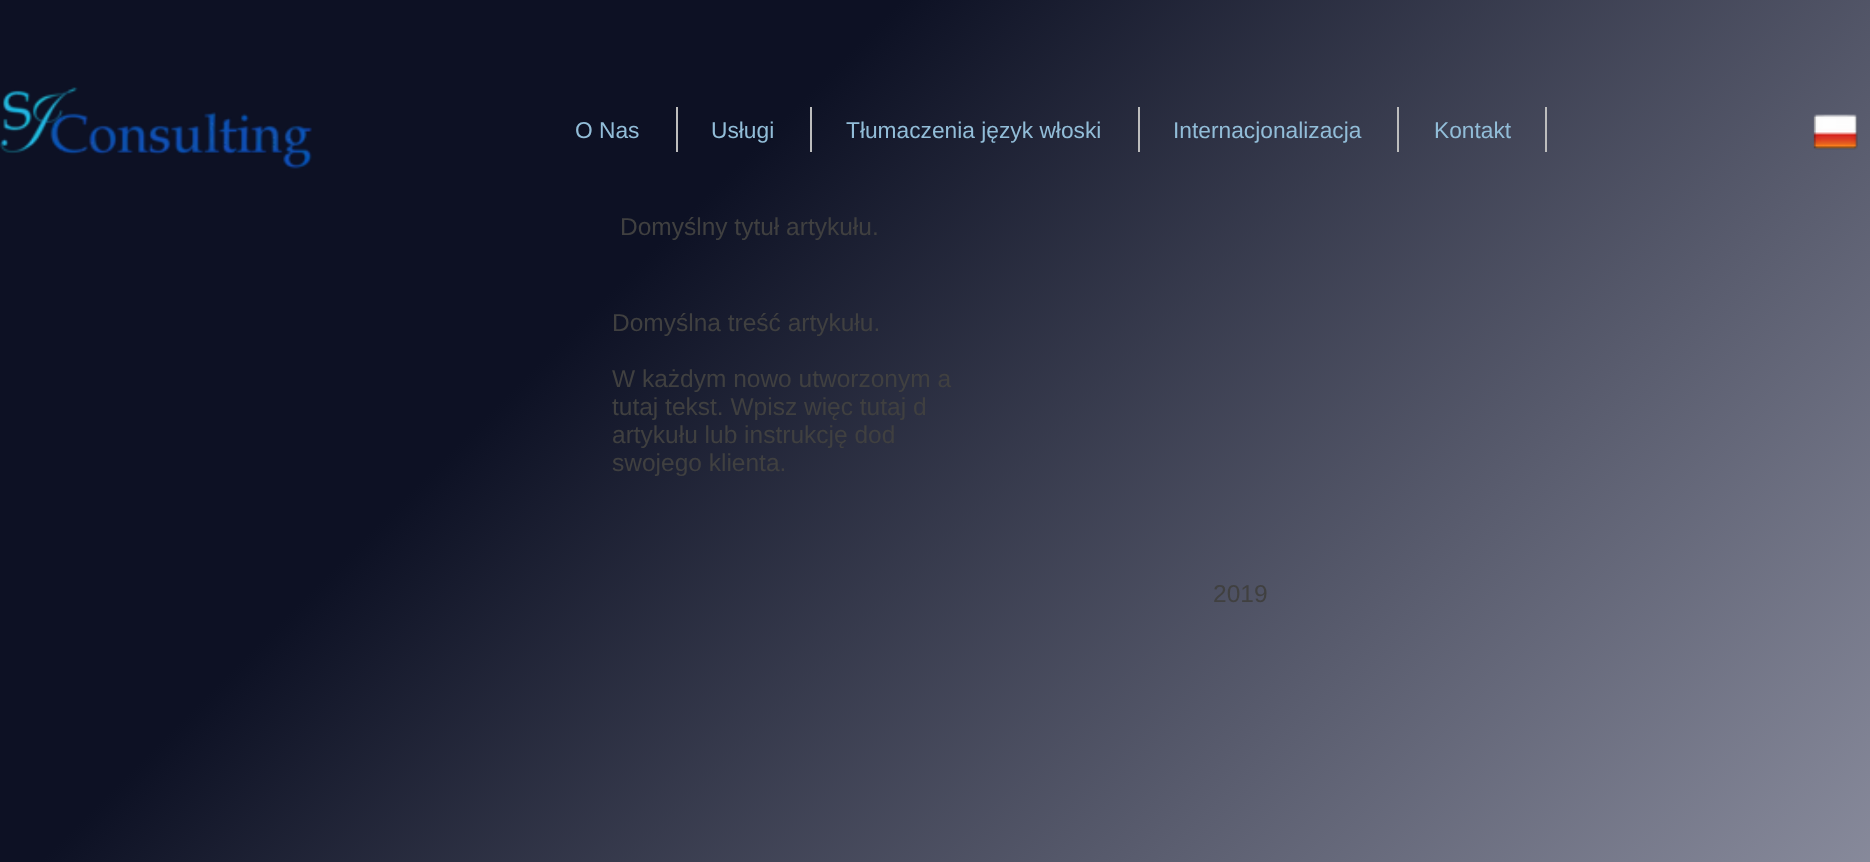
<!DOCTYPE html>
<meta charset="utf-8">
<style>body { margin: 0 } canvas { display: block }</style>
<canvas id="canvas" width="1870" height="862"></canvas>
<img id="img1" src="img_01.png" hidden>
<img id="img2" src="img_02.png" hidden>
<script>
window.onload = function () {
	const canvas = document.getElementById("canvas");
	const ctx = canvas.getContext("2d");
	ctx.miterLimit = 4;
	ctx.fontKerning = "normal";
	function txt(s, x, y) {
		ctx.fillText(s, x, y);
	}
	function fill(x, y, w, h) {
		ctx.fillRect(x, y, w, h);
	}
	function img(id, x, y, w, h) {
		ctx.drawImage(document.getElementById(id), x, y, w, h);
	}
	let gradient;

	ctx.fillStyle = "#FFFFFF";
	fill(0, 0, 1870, 862);
	gradient = ctx.createLinearGradient(252, -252, 1619, 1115);
	gradient.addColorStop(0.33, "#0D1124");
	gradient.addColorStop(1, "rgba(115, 118, 138, 0.86)");
	ctx.fillStyle = gradient;
	fill(0, 0, 1870, 862);
	img("img1", 0, 87, 312, 82);
	ctx.fillStyle = "#BDBDBD";
	fill(676, 107, 2, 45);
	fill(810, 107, 2, 45);
	fill(1138, 107, 2, 45);
	fill(1397, 107, 2, 45);
	fill(1545, 107, 2, 45);
	img("img2", 1813, 114, 45, 36);
	ctx.font = "22.75px Liberation Sans";
	ctx.fillStyle = "#92BDD8";
	txt("O Nas", 575, 138);
	txt("Usługi", 711, 138);
	txt("Tłumaczenia język włoski", 846, 138);
	txt("Internacjonalizacja", 1173, 138);
	txt("Kontakt", 1434, 138);
	ctx.font = "24.5px Liberation Sans";
	ctx.fillStyle = "#404040";
	txt("Domyślny tytuł artykułu.", 620, 235);
	txt("Domyślna treść artykułu.", 612, 331);
	txt("W każdym nowo utworzonym a", 612, 387);
	txt("tutaj tekst. Wpisz więc tutaj d", 612, 415);
	txt("artykułu lub instrukcję dod", 612, 443);
	txt("swojego klienta.", 612, 471);
	txt("2019", 1213, 602);
};
</script>
